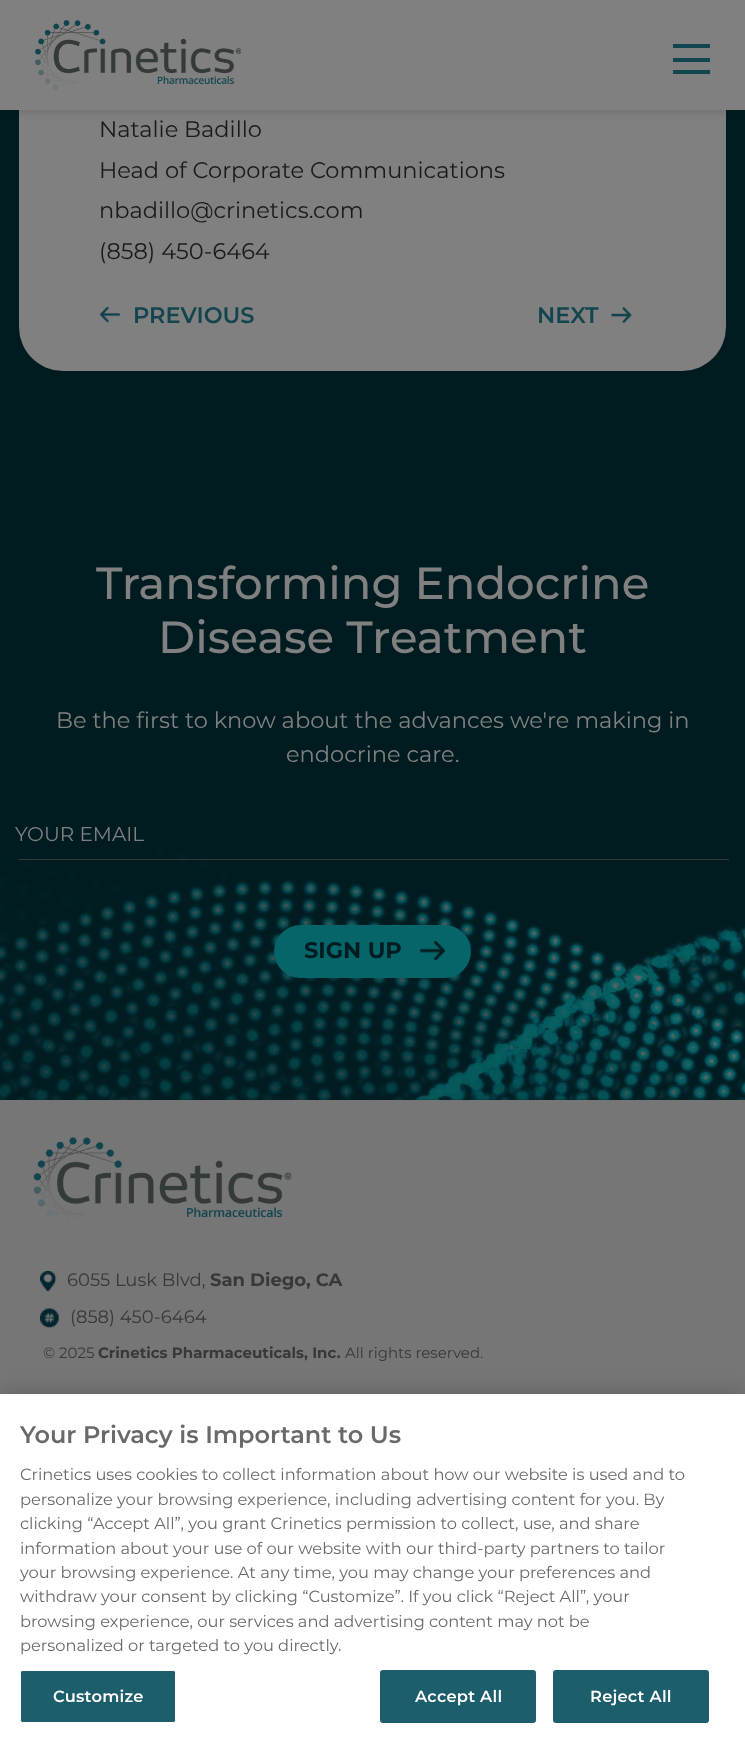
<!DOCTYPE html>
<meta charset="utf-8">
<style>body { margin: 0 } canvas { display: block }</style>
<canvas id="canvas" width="745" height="1747"></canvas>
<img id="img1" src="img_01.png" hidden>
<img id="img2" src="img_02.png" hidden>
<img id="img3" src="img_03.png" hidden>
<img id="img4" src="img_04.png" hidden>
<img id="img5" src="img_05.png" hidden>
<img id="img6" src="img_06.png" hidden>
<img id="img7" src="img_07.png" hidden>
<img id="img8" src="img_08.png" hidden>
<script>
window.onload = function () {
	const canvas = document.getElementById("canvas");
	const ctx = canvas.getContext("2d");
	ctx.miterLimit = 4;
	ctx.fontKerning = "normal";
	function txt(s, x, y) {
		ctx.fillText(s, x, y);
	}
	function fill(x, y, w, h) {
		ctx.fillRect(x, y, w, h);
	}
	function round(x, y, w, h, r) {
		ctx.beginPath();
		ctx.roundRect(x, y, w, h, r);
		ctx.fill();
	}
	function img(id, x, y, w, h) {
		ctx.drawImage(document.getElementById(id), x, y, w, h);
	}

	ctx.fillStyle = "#011C21";
	fill(0, 0, 745, 1747);
	ctx.fillStyle = "#808080";
	round(19, -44, 707, 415, 44);
	ctx.fillStyle = "rgba(0, 0, 0, 0.1)";
	ctx.filter = "blur(3px)";
	ctx.beginPath();
	ctx.rect(0, 3, 745, 110);
	ctx.fill();
	ctx.filter = "none";
	ctx.fillStyle = "#808080";
	fill(0, 0, 745, 110);
	img("img1", 35, 20, 206, 70);
	ctx.fillStyle = "#12454E";
	fill(673, 44, 37, 4);
	fill(673, 58, 37, 4);
	fill(673, 70, 37, 4);
	img("img2", 100, 306, 20, 17);
	img("img3", 611, 307, 21, 16);
	img("img4", 0, 823, 745, 277);
	ctx.fillStyle = "#383838";
	fill(18, 859, 711, 1);
	ctx.fillStyle = "#066568";
	round(274, 925, 197, 53, 26.5);
	img("img5", 420, 941, 25, 19);
	ctx.fillStyle = "#777677";
	fill(0, 1100, 745, 294);
	img("img6", 33, 1137, 259, 88);
	img("img7", 40, 1271, 17, 21);
	img("img8", 40, 1308, 19, 20);
	ctx.fillStyle = "rgba(0, 0, 0, 0.2)";
	ctx.filter = "blur(11px)";
	ctx.beginPath();
	ctx.rect(0, 1394, 745, 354);
	ctx.fill();
	ctx.filter = "none";
	ctx.fillStyle = "#FFFFFF";
	fill(0, 1394, 745, 353);
	ctx.fillStyle = "#1C5E6B";
	ctx.beginPath();
	ctx.roundRect(20.5, 1670.5, 155, 52, 2);
	ctx.fill();
	ctx.strokeStyle = "#FFFFFF";
	ctx.stroke();
	ctx.beginPath();
	ctx.roundRect(380.5, 1670.5, 155, 52, 2);
	ctx.fill();
	ctx.strokeStyle = "#1C5E6B";
	ctx.stroke();
	ctx.beginPath();
	ctx.roundRect(553.5, 1670.5, 155, 52, 2);
	ctx.fill();
	ctx.stroke();
	ctx.font = "22.5px Montserrat";
	ctx.fillStyle = "#1A1A1A";
	txt("Natalie Badillo", 99, 137);
	txt("Head of Corporate Communications", 99, 178);
	txt("nbadillo@crinetics.com", 99, 218);
	txt("(858) 450-6464", 99, 259);
	ctx.font = "600 22.5px Montserrat";
	ctx.fillStyle = "#12454E";
	txt("PREVIOUS", 133, 323);
	txt("NEXT", 537, 323);
	ctx.font = "500 45px Montserrat";
	ctx.fillStyle = "#808080";
	txt("Transforming Endocrine", 96, 599);
	txt("Disease Treatment", 158, 653);
	ctx.font = "22.5px Montserrat";
	txt("Be the first to know about the advances we're making in", 56, 728);
	txt("endocrine care.", 286, 762);
	ctx.font = "20px Montserrat";
	txt("YOUR EMAIL", 15, 841);
	ctx.font = "bold 22.5px Montserrat";
	ctx.fillStyle = "#011C21";
	txt("SIGN UP", 304, 958);
	ctx.font = "18px Montserrat";
	ctx.fillStyle = "#383838";
	txt("6055 Lusk Blvd,", 67, 1286);
	ctx.font = "bold 18px Montserrat";
	txt("San Diego, CA", 210, 1286);
	ctx.font = "18px Montserrat";
	txt("(858) 450-6464", 70, 1323);
	ctx.font = "15px Montserrat";
	txt("© 2025", 43, 1358);
	ctx.font = "bold 15px Montserrat";
	txt("Crinetics Pharmaceuticals, Inc.", 98, 1358);
	ctx.font = "15px Montserrat";
	txt("All rights reserved.", 345, 1358);
	ctx.font = "600 24px Montserrat";
	ctx.fillStyle = "#696969";
	txt("Your Privacy is Important to Us", 20, 1443);
	ctx.font = "16.25px Montserrat";
	txt("Crinetics uses cookies to collect information about how our website is used and to", 20, 1480);
	txt("personalize your browsing experience, including advertising content for you. By", 20, 1505);
	txt("clicking “Accept All”, you grant Crinetics permission to collect, use, and share", 20, 1529);
	txt("information about your use of our website with our third-party partners to tailor", 20, 1554);
	txt("your browsing experience. At any time, you may change your preferences and", 20, 1578);
	txt("withdraw your consent by clicking “Customize”. If you click “Reject All”, your", 20, 1602);
	txt("browsing experience, our services and advertising content may not be", 20, 1627);
	txt("personalized or targeted to you directly.", 20, 1651);
	ctx.letterSpacing = "0.25px";
	ctx.font = "600 16.25px Montserrat";
	ctx.fillStyle = "#FFFFFF";
	txt("Customize", 53, 1702);
	txt("Accept All", 415, 1702);
	txt("Reject All", 590, 1702);
};
</script>
